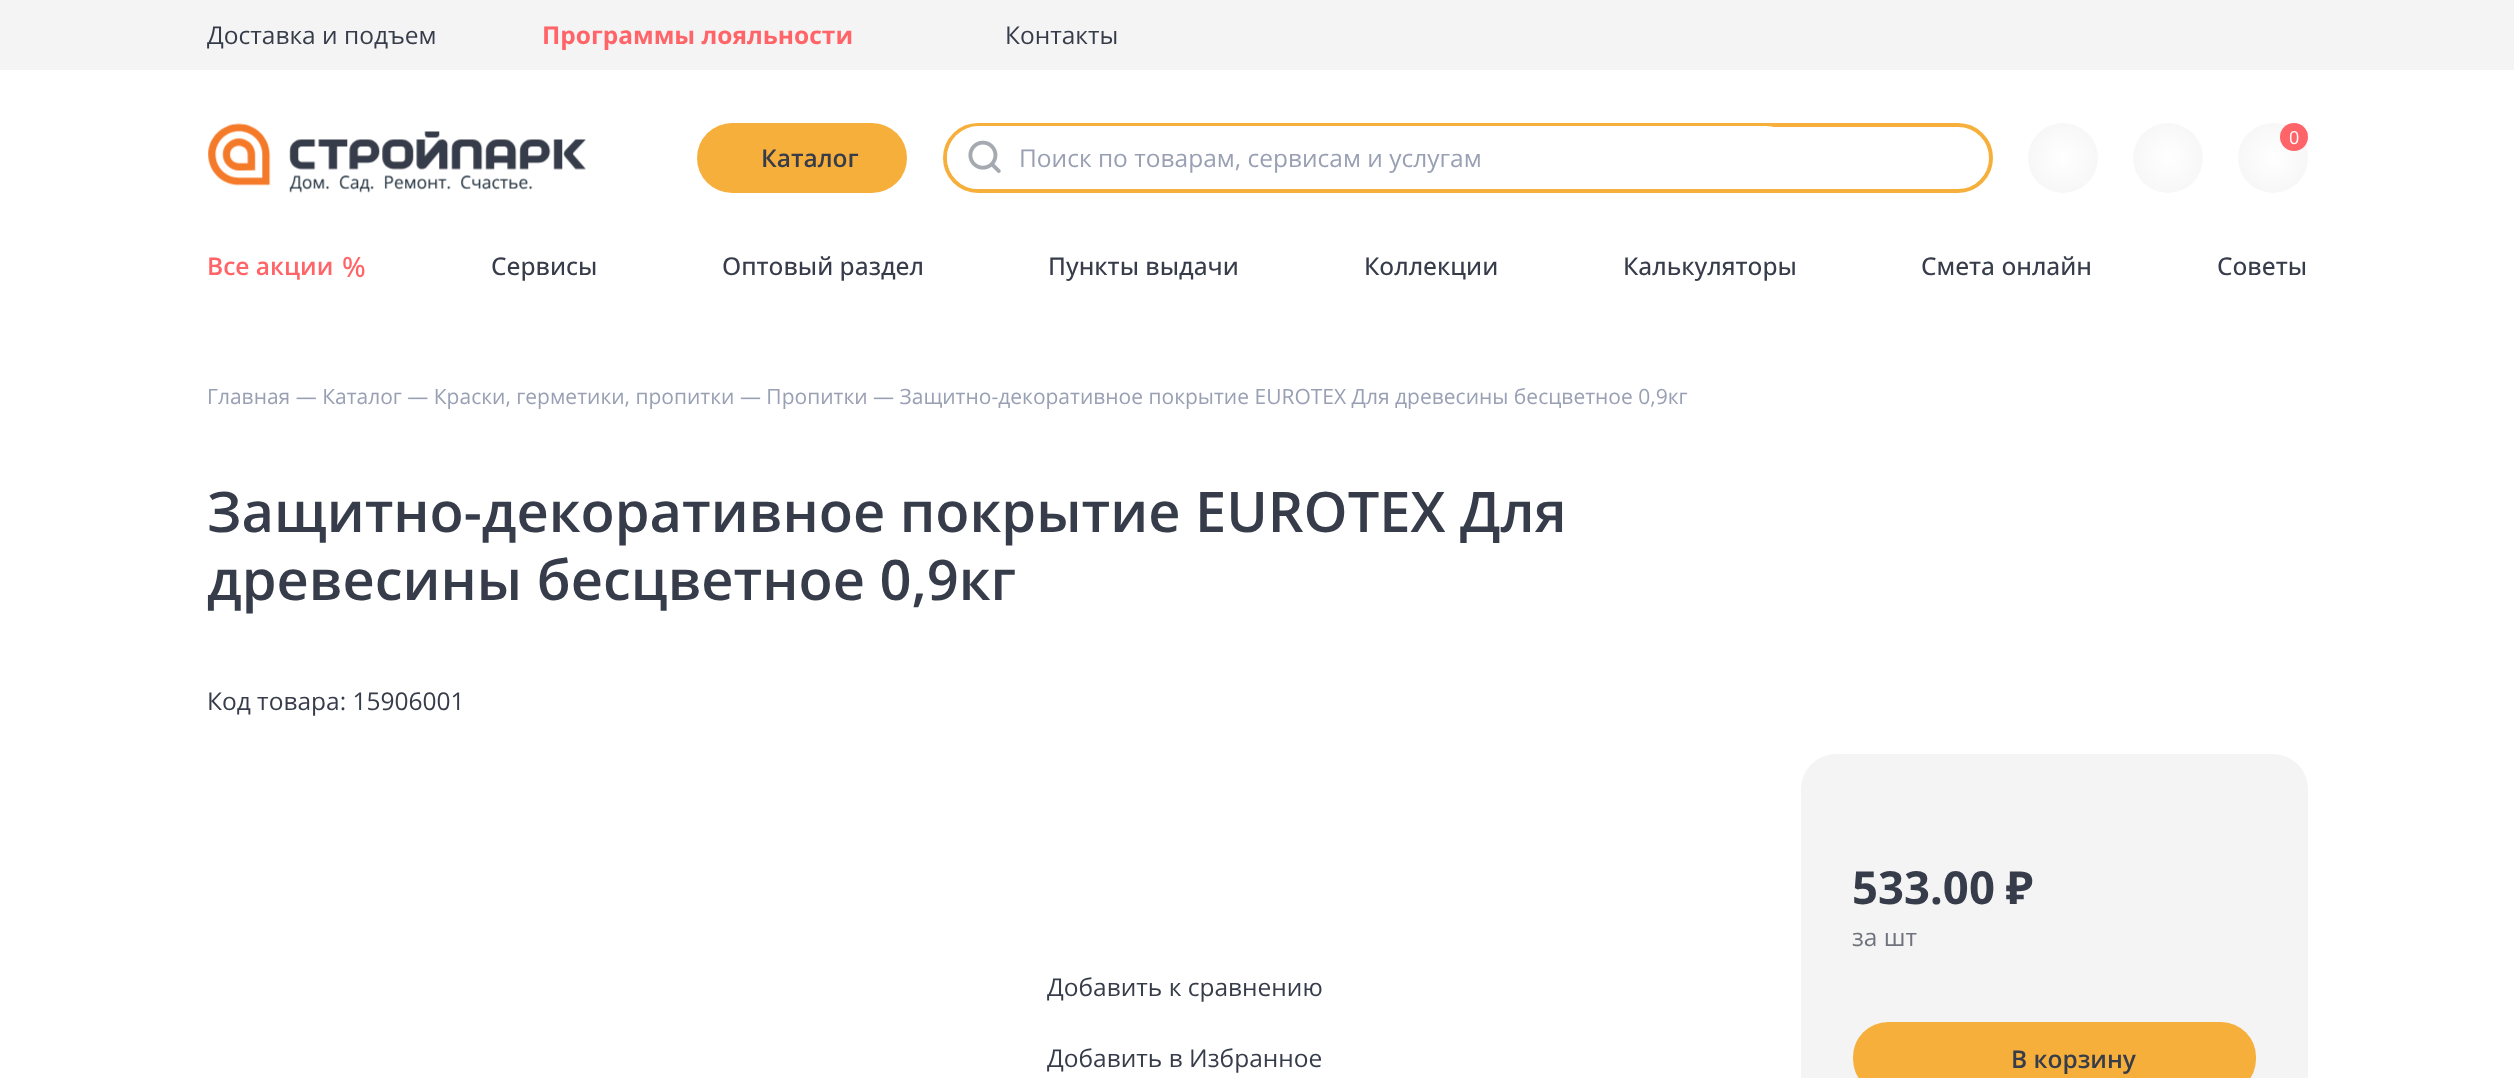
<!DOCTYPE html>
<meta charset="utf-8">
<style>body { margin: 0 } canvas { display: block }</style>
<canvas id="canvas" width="2514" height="1078"></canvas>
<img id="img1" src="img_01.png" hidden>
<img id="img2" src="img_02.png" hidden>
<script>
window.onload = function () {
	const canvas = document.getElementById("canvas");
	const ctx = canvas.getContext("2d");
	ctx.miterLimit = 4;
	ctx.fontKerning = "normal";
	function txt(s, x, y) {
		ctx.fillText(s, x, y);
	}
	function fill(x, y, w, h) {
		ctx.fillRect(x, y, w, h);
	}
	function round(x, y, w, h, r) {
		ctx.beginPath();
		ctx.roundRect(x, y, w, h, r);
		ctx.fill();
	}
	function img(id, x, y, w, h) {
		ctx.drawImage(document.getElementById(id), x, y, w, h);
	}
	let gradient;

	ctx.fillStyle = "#FFFFFF";
	fill(0, 0, 2514, 1078);
	ctx.fillStyle = "#F4F4F4";
	fill(0, 0, 2514, 70);
	gradient = ctx.createRadialGradient(2063, 158, 0, 2063, 158, 49);
	gradient.addColorStop(0, "#FFFFFF");
	gradient.addColorStop(1, "#F4F4F4");
	ctx.fillStyle = gradient;
	ctx.beginPath();
	ctx.arc(2063, 158, 35, 0, Math.PI * 2);
	ctx.fill();
	gradient = ctx.createRadialGradient(2168, 158, 0, 2168, 158, 49);
	gradient.addColorStop(0, "#FFFFFF");
	gradient.addColorStop(1, "#F4F4F4");
	ctx.fillStyle = gradient;
	ctx.beginPath();
	ctx.arc(2168, 158, 35, 0, Math.PI * 2);
	ctx.fill();
	gradient = ctx.createRadialGradient(2273, 158, 0, 2273, 158, 49);
	gradient.addColorStop(0, "#FFFFFF");
	gradient.addColorStop(1, "#F4F4F4");
	ctx.fillStyle = gradient;
	ctx.beginPath();
	ctx.arc(2273, 158, 35, 0, Math.PI * 2);
	ctx.fill();
	ctx.fillStyle = "#FF6568";
	ctx.beginPath();
	ctx.arc(2294, 137, 14, 0, Math.PI * 2);
	ctx.fill();
	img("img1", 208, 123, 378, 70);
	ctx.fillStyle = "#F6AF3B";
	round(697, 123, 210, 70, 35);
	ctx.beginPath();
	ctx.roundRect(945, 125, 1046, 66, 33);
	ctx.strokeStyle = "#F6AF3B";
	ctx.lineWidth = 4;
	ctx.stroke();
	ctx.fillStyle = "#FFFFFF";
	round(947, 126, 850, 63, 31.5);
	img("img2", 968, 140, 33, 33);
	ctx.fillStyle = "#F4F4F4";
	round(1801, 754, 507, 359, 35);
	ctx.fillStyle = "#F6AF3B";
	round(1853, 1022, 403, 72, 35);
	ctx.font = "24.5px Open Sans";
	ctx.fillStyle = "#373C4A";
	txt("Доставка и подъем", 207, 44);
	ctx.font = "bold 24.5px Open Sans";
	ctx.fillStyle = "#FF6568";
	txt("Программы лояльности", 542, 44);
	ctx.font = "24.5px Open Sans";
	ctx.fillStyle = "#373C4A";
	txt("Контакты", 1005, 44);
	ctx.font = "18px Open Sans";
	ctx.fillStyle = "#FFFFFF";
	txt("0", 2289, 144);
	ctx.font = "600 24.5px Open Sans";
	ctx.fillStyle = "#373C4A";
	txt("Каталог", 761, 167);
	ctx.font = "24.5px Open Sans";
	ctx.fillStyle = "#99A0B4";
	txt("Поиск по товарам, сервисам и услугам", 1019, 167);
	ctx.font = "600 24.5px Open Sans";
	ctx.fillStyle = "#FF6568";
	txt("Все акции", 207, 275);
	ctx.font = "500 28px Open Sans";
	txt("%", 342, 277);
	ctx.font = "500 24.5px Open Sans";
	ctx.fillStyle = "#373C4A";
	txt("Сервисы", 491, 275);
	txt("Оптовый раздел", 722, 275);
	txt("Пункты выдачи", 1048, 275);
	txt("Коллекции", 1364, 275);
	txt("Калькуляторы", 1623, 275);
	txt("Смета онлайн", 1921, 275);
	txt("Советы", 2217, 275);
	ctx.font = "21px Open Sans";
	ctx.fillStyle = "#99A0B4";
	txt("Главная — Каталог — Краски, герметики, пропитки — Пропитки — Защитно-декоративное покрытие EUROTEX Для древесины бесцветное 0,9кг", 207, 404);
	ctx.font = "600 56px Open Sans";
	ctx.fillStyle = "#373C4A";
	txt("Защитно-декоративное покрытие EUROTEX Для", 207, 532);
	txt("древесины бесцветное 0,9кг", 207, 600);
	ctx.font = "24.5px Open Sans";
	txt("Код товара: 15906001", 207, 710);
	txt("Добавить к сравнению", 1047, 996);
	txt("Добавить в Избранное", 1047, 1067);
	ctx.wordSpacing = "-1px";
	ctx.font = "bold 45.5px Noto Sans";
	txt("533.00 ₽", 1852, 904);
	ctx.wordSpacing = "0px";
	ctx.font = "24.5px Open Sans";
	ctx.fillStyle = "#70737D";
	txt("за шт", 1852, 946);
	ctx.font = "600 24.5px Open Sans";
	ctx.fillStyle = "#373C4A";
	txt("В корзину", 2011, 1068);
};
</script>
